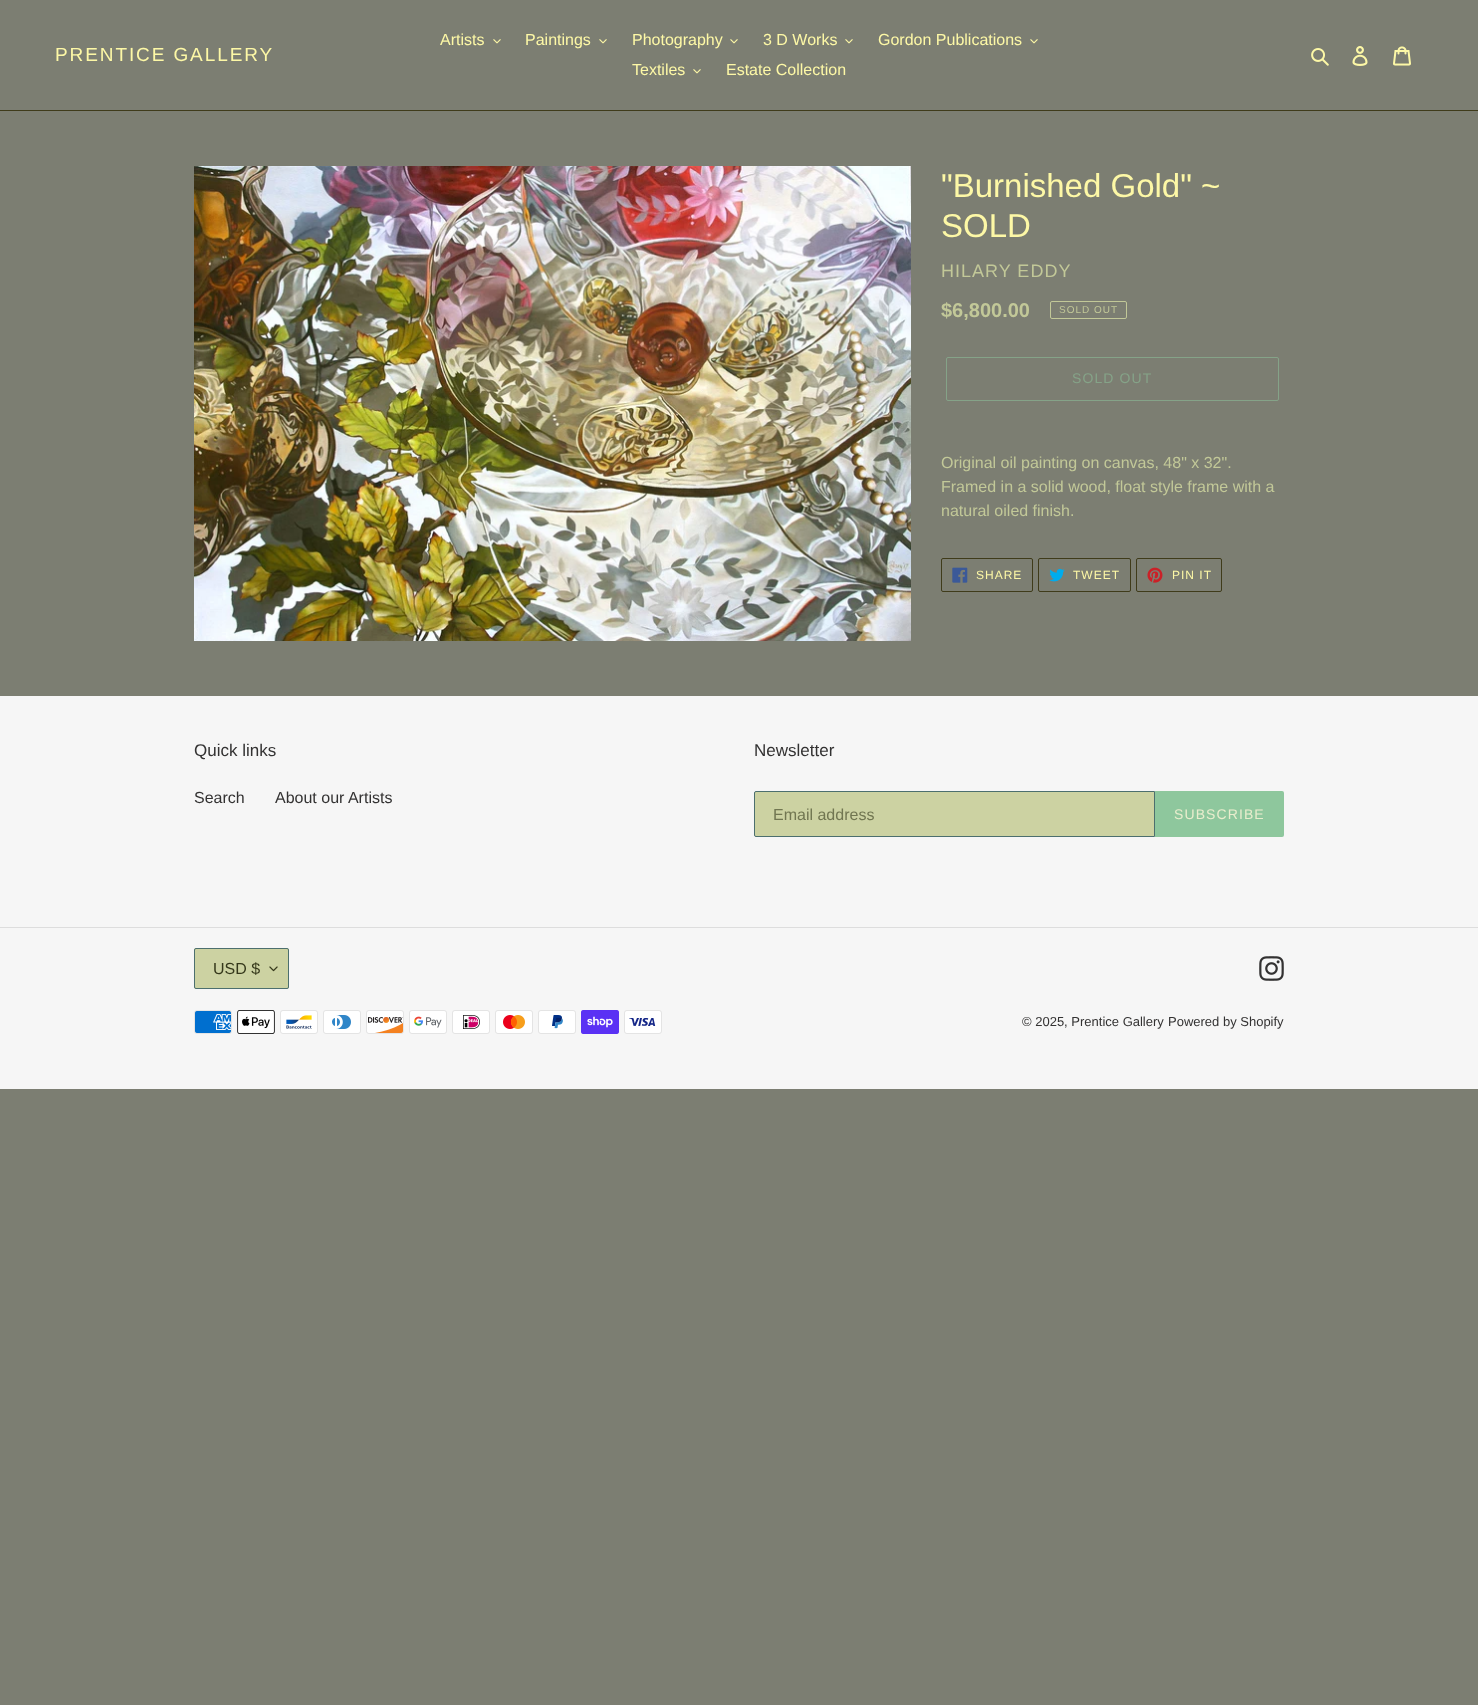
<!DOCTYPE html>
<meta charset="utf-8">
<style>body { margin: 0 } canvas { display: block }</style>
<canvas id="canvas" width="1478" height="1705"></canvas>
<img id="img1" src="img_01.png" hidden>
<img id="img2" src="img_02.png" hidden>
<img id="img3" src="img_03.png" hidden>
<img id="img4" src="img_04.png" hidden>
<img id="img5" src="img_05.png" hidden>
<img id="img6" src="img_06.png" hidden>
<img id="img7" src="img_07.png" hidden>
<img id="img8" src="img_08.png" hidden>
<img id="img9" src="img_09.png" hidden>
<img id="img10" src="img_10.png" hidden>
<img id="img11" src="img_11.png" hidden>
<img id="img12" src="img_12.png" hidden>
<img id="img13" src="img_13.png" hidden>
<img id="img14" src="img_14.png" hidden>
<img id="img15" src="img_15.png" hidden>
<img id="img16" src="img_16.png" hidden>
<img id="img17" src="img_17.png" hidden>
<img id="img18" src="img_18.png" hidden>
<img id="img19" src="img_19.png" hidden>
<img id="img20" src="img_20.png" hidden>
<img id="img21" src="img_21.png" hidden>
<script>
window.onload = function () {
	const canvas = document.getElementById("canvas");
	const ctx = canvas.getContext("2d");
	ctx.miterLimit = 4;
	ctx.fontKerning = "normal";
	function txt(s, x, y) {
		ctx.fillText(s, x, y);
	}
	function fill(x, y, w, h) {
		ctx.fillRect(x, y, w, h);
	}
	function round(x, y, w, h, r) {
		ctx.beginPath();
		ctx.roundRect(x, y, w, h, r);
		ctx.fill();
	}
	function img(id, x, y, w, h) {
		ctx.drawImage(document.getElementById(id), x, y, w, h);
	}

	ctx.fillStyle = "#7C7E72";
	fill(0, 0, 1478, 1705);
	ctx.fillStyle = "#3F3B1A";
	fill(0, 110, 1478, 1);
	img("img1", 493, 39, 8, 5);
	img("img1", 599, 39, 8, 5);
	img("img1", 730, 39, 8, 5);
	img("img1", 845, 39, 8, 5);
	img("img1", 1030, 39, 8, 5);
	img("img1", 693, 69, 8, 5);
	img("img2", 1311, 48, 18, 18);
	img("img3", 1352, 46, 16, 20);
	img("img4", 1393, 46, 18, 20);
	img("img5", 194, 166, 717, 475);
	ctx.beginPath();
	ctx.roundRect(1050.5, 301.5, 76, 17, 1.5);
	ctx.strokeStyle = "#C2C898";
	ctx.stroke();
	ctx.beginPath();
	ctx.roundRect(946.5, 357.5, 332, 43, 1.5);
	ctx.strokeStyle = "#85A388";
	ctx.stroke();
	ctx.beginPath();
	ctx.roundRect(941.5, 558.5, 91, 33, 1.5);
	ctx.strokeStyle = "#3F3B1A";
	ctx.stroke();
	img("img6", 952, 567, 16, 16);
	ctx.beginPath();
	ctx.roundRect(1038.5, 558.5, 92, 33, 1.5);
	ctx.stroke();
	img("img7", 1049, 568, 16, 14);
	ctx.beginPath();
	ctx.roundRect(1136.5, 558.5, 85, 33, 1.5);
	ctx.stroke();
	img("img8", 1147, 567, 16, 16);
	ctx.fillStyle = "#F6F6F6";
	fill(0, 696, 1478, 393);
	ctx.fillStyle = "#CCD2A2";
	ctx.beginPath();
	ctx.roundRect(754.5, 791.5, 400, 45, [1.5, 0, 0, 1.5]);
	ctx.fill();
	ctx.strokeStyle = "#4C6F6E";
	ctx.stroke();
	ctx.fillStyle = "#8EC79D";
	ctx.beginPath();
	ctx.roundRect(1155, 791, 129, 46, [0, 2, 2, 0]);
	ctx.fill();
	ctx.fillStyle = "#DDDDDD";
	fill(0, 927, 1478, 1);
	ctx.fillStyle = "#CCD2A2";
	round(194, 948, 95, 41, 2);
	img("img9", 269, 966, 9, 6);
	ctx.beginPath();
	ctx.roundRect(194.5, 948.5, 94, 40, 1.5);
	ctx.stroke();
	img("img10", 1259, 956, 25, 25);
	img("img11", 194, 1010, 38, 24);
	img("img12", 237, 1010, 38, 24);
	img("img13", 280, 1010, 38, 24);
	img("img14", 323, 1010, 38, 24);
	img("img15", 366, 1010, 38, 24);
	img("img16", 409, 1010, 38, 24);
	img("img17", 452, 1010, 38, 24);
	img("img18", 495, 1010, 38, 24);
	img("img19", 538, 1010, 38, 24);
	img("img20", 581, 1010, 38, 24);
	img("img21", 624, 1010, 38, 24);
	ctx.letterSpacing = "1.9px";
	ctx.font = "19px Arimo";
	ctx.fillStyle = "#FDF8A6";
	txt("PRENTICE GALLERY", 55, 61);
	ctx.letterSpacing = "0px";
	ctx.font = "16px Liberation Sans";
	txt("Artists", 440, 45);
	txt("Paintings", 525, 45);
	txt("Photography", 632, 45);
	txt("3 D Works", 763, 45);
	txt("Gordon Publications", 878, 45);
	txt("Textiles", 632, 75);
	txt("Estate Collection", 726, 75);
	ctx.font = "33px Arimo";
	txt("\"Burnished Gold\" ~", 941, 197);
	txt("SOLD", 941, 237);
	ctx.letterSpacing = "1px";
	ctx.font = "18px Liberation Sans";
	ctx.fillStyle = "#C2C898";
	txt("HILARY EDDY", 941, 277);
	ctx.letterSpacing = "0px";
	ctx.font = "bold 20px Liberation Sans";
	txt("$6,800.00", 941, 317);
	ctx.letterSpacing = "1px";
	ctx.font = "10px Liberation Sans";
	txt("SOLD OUT", 1059, 313);
	ctx.letterSpacing = "1.1px";
	ctx.font = "14px Arimo";
	ctx.fillStyle = "#85A388";
	txt("SOLD OUT", 1072, 383);
	ctx.letterSpacing = "0px";
	ctx.font = "16px Liberation Sans";
	ctx.fillStyle = "#C2C898";
	txt("Original oil painting on canvas, 48\" x 32\".", 941, 468);
	txt("Framed in a solid wood, float style frame with a", 941, 492);
	txt("natural oiled finish.", 941, 516);
	ctx.letterSpacing = "1px";
	ctx.font = "12px Arimo";
	ctx.fillStyle = "#FDF8A6";
	txt("SHARE", 976, 579);
	txt("TWEET", 1073, 579);
	txt("PIN IT", 1172, 579);
	ctx.letterSpacing = "0px";
	ctx.font = "17px Arimo";
	ctx.fillStyle = "#333232";
	txt("Quick links", 194, 756);
	ctx.font = "16px Liberation Sans";
	txt("Search", 194, 803);
	txt("About our Artists", 275, 803);
	ctx.font = "17px Arimo";
	txt("Newsletter", 754, 756);
	ctx.font = "16px Liberation Sans";
	ctx.fillStyle = "#717651";
	txt("Email address", 773, 820);
	ctx.letterSpacing = "1.1px";
	ctx.font = "14px Arimo";
	ctx.fillStyle = "#E9EDCD";
	txt("SUBSCRIBE", 1174, 819);
	ctx.letterSpacing = "0px";
	ctx.font = "16px Liberation Sans";
	ctx.fillStyle = "#35381B";
	txt("USD $", 213, 974);
	ctx.font = "13px Liberation Sans";
	ctx.fillStyle = "#333232";
	txt("© 2025, Prentice Gallery", 1022, 1026);
	txt("Powered by Shopify", 1168, 1026);
};
</script>
